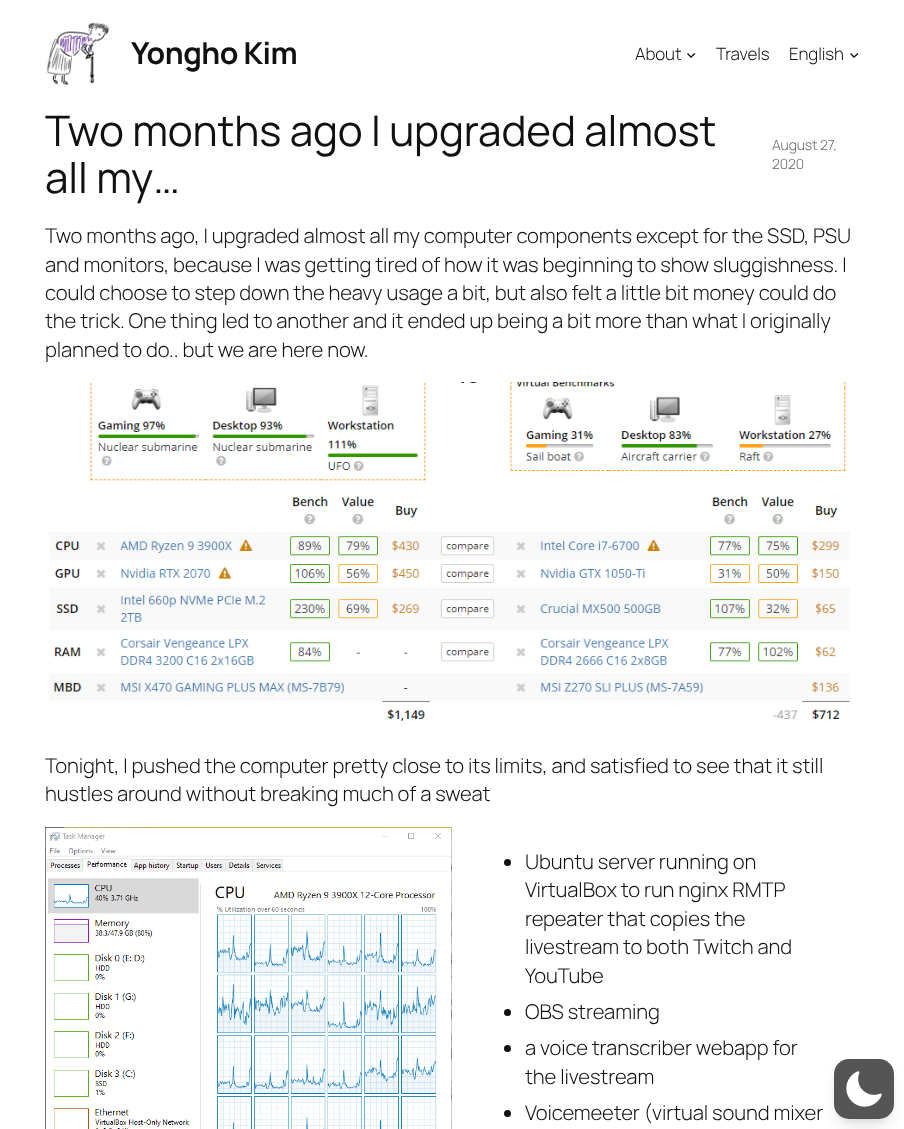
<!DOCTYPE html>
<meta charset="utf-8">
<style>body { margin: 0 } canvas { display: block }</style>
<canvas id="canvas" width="904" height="1129"></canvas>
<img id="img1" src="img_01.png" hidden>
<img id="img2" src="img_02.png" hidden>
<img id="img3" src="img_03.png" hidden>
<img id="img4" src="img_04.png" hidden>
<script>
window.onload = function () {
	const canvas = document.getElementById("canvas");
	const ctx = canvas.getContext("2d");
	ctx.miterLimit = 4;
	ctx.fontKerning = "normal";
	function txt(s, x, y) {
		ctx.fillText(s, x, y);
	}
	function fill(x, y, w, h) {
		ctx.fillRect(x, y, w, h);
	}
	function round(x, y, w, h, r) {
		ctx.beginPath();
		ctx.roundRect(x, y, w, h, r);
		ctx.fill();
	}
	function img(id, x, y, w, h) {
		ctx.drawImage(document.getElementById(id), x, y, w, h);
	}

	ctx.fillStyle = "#FFFFFF";
	fill(0, 0, 904, 1129);
	img("img1", 46, 22, 64, 64);
	ctx.beginPath();
	ctx.moveTo(687.5, 53.5);
	ctx.lineTo(691, 57);
	ctx.lineTo(695, 53.5);
	ctx.strokeStyle = "#111111";
	ctx.lineWidth = 1.3;
	ctx.stroke();
	ctx.beginPath();
	ctx.moveTo(850.5, 53.5);
	ctx.lineTo(854, 57);
	ctx.lineTo(858, 53.5);
	ctx.stroke();
	img("img2", 49, 382, 801, 339);
	img("img3", 45, 827, 407, 302);
	ctx.fillStyle = "#111111";
	ctx.beginPath();
	ctx.arc(507.5, 862.5, 3.5, 0, Math.PI * 2);
	ctx.fill();
	ctx.beginPath();
	ctx.arc(507.5, 1012.5, 3.5, 0, Math.PI * 2);
	ctx.fill();
	ctx.beginPath();
	ctx.arc(507.5, 1048.5, 3.5, 0, Math.PI * 2);
	ctx.fill();
	ctx.beginPath();
	ctx.arc(507.5, 1113.5, 3.5, 0, Math.PI * 2);
	ctx.fill();
	ctx.fillStyle = "rgba(0, 0, 0, 0.1)";
	ctx.filter = "blur(3px)";
	ctx.beginPath();
	ctx.roundRect(838, 1067, 52, 52, 11);
	ctx.fill();
	ctx.filter = "none";
	ctx.filter = "blur(7.5px)";
	ctx.beginPath();
	ctx.roundRect(837, 1072, 54, 54, 12);
	ctx.fill();
	ctx.filter = "none";
	ctx.fillStyle = "#555555";
	round(834, 1059, 60, 60, 15);
	img("img4", 846, 1071, 36, 36);
	ctx.letterSpacing = "-0.5px";
	ctx.font = "bold 30.25px Manrope";
	ctx.fillStyle = "#111111";
	txt("Yongho Kim", 131, 64);
	ctx.letterSpacing = "-0.1px";
	ctx.font = "300 17px Manrope";
	txt("About", 635, 60);
	txt("Travels", 716, 60);
	txt("English", 789, 60);
	ctx.font = "42.2px Manrope";
	txt("Two months ago I upgraded almost", 45, 146);
	txt("all my…", 45, 193);
	ctx.font = "300 14px Manrope";
	ctx.fillStyle = "#686868";
	txt("August 27,", 772, 150);
	txt("2020", 772, 169);
	ctx.font = "300 20.3px Manrope";
	ctx.fillStyle = "#111111";
	txt("Two months ago, I upgraded almost all my computer components except for the SSD, PSU", 45, 243);
	txt("and monitors, because I was getting tired of how it was beginning to show sluggishness. I", 45, 272);
	txt("could choose to step down the heavy usage a bit, but also felt a little bit money could do", 45, 300);
	txt("the trick. One thing led to another and it ended up being a bit more than what I originally", 45, 328);
	txt("planned to do.. but we are here now.", 45, 357);
	txt("Tonight, I pushed the computer pretty close to its limits, and satisfied to see that it still", 45, 773);
	txt("hustles around without breaking much of a sweat", 45, 801);
	txt("Ubuntu server running on", 525, 869);
	txt("VirtualBox to run nginx RMTP", 525, 897);
	txt("repeater that copies the", 525, 926);
	txt("livestream to both Twitch and", 525, 954);
	txt("YouTube", 525, 983);
	txt("OBS streaming", 525, 1019);
	txt("a voice transcriber webapp for", 525, 1055);
	txt("the livestream", 525, 1084);
	txt("Voicemeeter (virtual sound mixer", 525, 1120);
};
</script>
